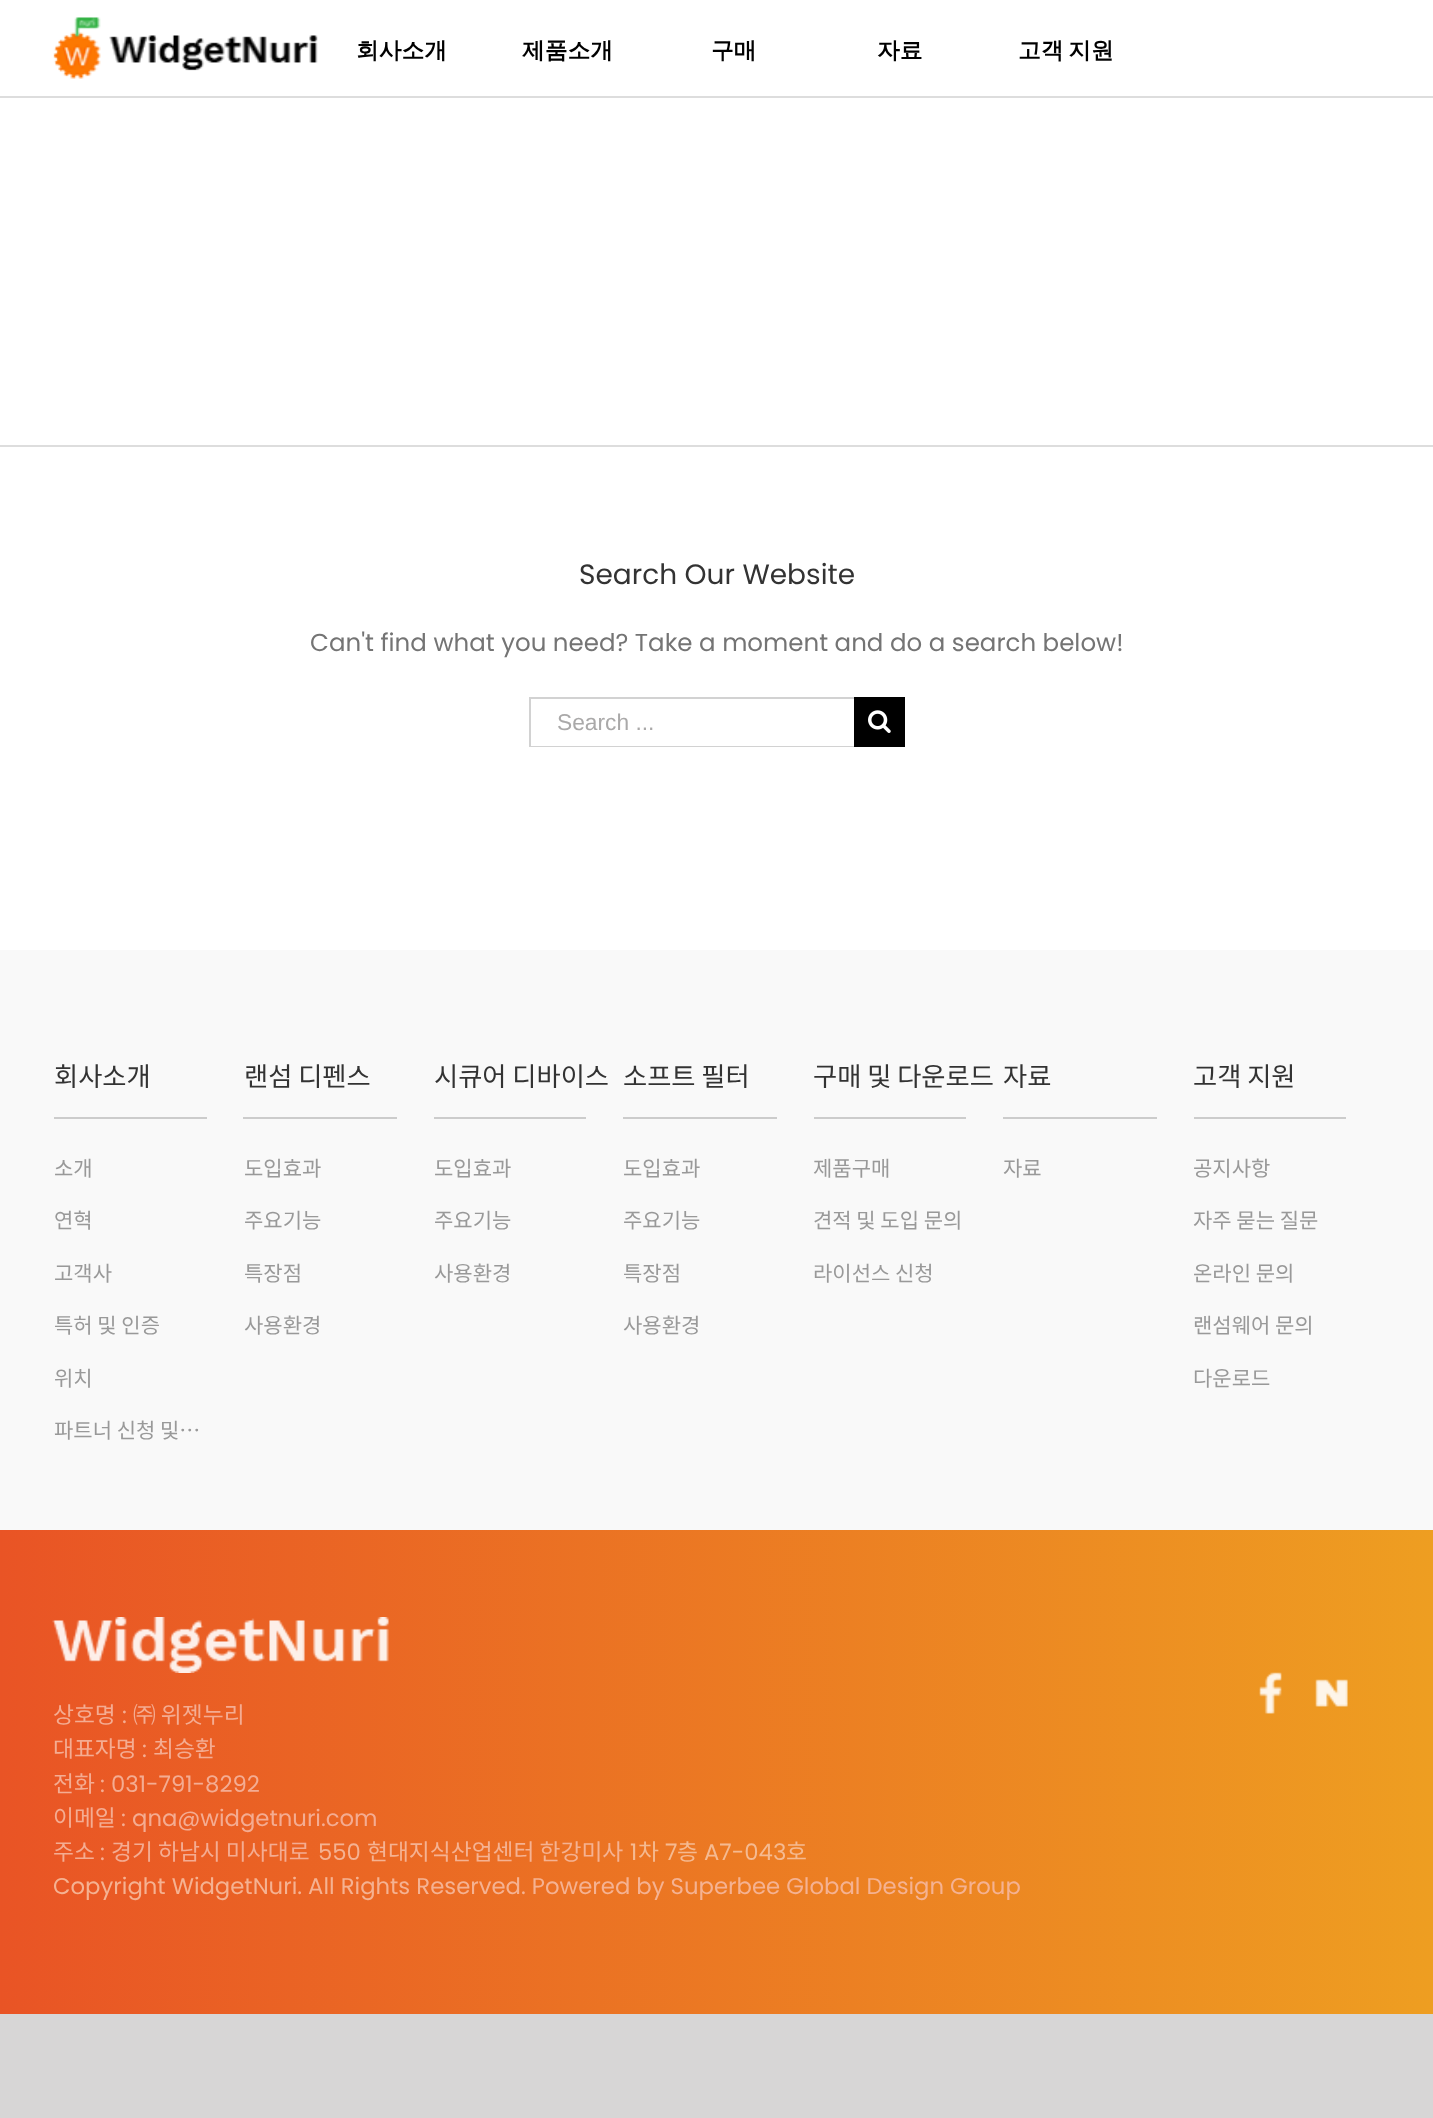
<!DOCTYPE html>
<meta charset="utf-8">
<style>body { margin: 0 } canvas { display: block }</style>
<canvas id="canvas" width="1433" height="2118"></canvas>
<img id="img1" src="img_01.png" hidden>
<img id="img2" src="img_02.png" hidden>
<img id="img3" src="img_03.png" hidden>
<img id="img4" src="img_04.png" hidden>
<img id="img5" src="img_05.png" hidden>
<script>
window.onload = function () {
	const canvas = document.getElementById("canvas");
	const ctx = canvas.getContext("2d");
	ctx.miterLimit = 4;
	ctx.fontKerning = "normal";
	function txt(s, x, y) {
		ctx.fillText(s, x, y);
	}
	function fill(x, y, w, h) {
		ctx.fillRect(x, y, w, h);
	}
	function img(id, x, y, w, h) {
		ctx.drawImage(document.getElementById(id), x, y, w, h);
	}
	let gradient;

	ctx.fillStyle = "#D7D6D6";
	fill(0, 0, 1433, 2118);
	ctx.fillStyle = "#FFFFFF";
	fill(0, 0, 1433, 950);
	ctx.fillStyle = "#DDDDDD";
	fill(0, 445, 1433, 2);
	img("img1", 53, 17, 265, 62);
	fill(0, 96, 1433, 2);
	ctx.fillStyle = "#D2D2D2";
	fill(529, 697, 325, 2);
	fill(529, 746, 325, 1);
	fill(529, 697, 2, 50);
	ctx.fillStyle = "#000000";
	fill(854, 697, 51, 50);
	img("img2", 868, 710, 23, 23);
	ctx.fillStyle = "#F9F9F9";
	fill(0, 950, 1433, 580);
	ctx.fillStyle = "#CCCCCC";
	fill(54, 1117, 153, 2);
	fill(243, 1117, 154, 2);
	fill(434, 1117, 152, 2);
	fill(623, 1117, 154, 2);
	fill(814, 1117, 152, 2);
	fill(1003, 1117, 154, 2);
	fill(1194, 1117, 152, 2);
	gradient = ctx.createLinearGradient(0, 1772, 1433, 1772);
	gradient.addColorStop(0, "#E95425");
	gradient.addColorStop(1, "#EE9E21");
	ctx.fillStyle = gradient;
	fill(0, 1530, 1433, 484);
	img("img3", 1259, 1672, 23, 42);
	img("img4", 1315, 1679, 33, 28);
	img("img5", 52, 1617, 337, 56);
	ctx.font = "bold 22.75px WenQuanYi Zen Hei";
	ctx.fillStyle = "#000000";
	txt("회사소개", 356, 58);
	txt("제품소개", 522, 58);
	txt("구매", 711, 58);
	txt("자료", 877, 58);
	ctx.wordSpacing = "-2px";
	txt("고객 지원", 1018, 58);
	ctx.wordSpacing = "0px";
	ctx.font = "28px Poppins";
	ctx.fillStyle = "#333333";
	txt("Search Our Website", 579, 584);
	ctx.font = "24.5px Poppins";
	ctx.fillStyle = "#747474";
	txt("Can't find what you need? Take a moment and do a search below!", 310, 651);
	ctx.font = "22.75px Liberation Sans";
	ctx.fillStyle = "#AAA9A9";
	txt("Search ...", 557, 730);
	ctx.font = "26.25px Noto Sans KR";
	ctx.fillStyle = "#333333";
	txt("회사소개", 54, 1086);
	ctx.font = "21px Noto Sans KR";
	ctx.fillStyle = "#999999";
	txt("소개", 54, 1176);
	txt("연혁", 54, 1228);
	txt("고객사", 54, 1281);
	txt("특허 및 인증", 54, 1333);
	txt("위치", 54, 1386);
	txt("파트너 신청 및…", 54, 1438);
	ctx.font = "26.25px Noto Sans KR";
	ctx.fillStyle = "#333333";
	txt("랜섬 디펜스", 244, 1086);
	ctx.font = "21px Noto Sans KR";
	ctx.fillStyle = "#999999";
	txt("도입효과", 244, 1176);
	txt("주요기능", 244, 1228);
	txt("특장점", 244, 1281);
	txt("사용환경", 244, 1333);
	ctx.font = "26.25px Noto Sans KR";
	ctx.fillStyle = "#333333";
	txt("시큐어 디바이스", 434, 1086);
	ctx.font = "21px Noto Sans KR";
	ctx.fillStyle = "#999999";
	txt("도입효과", 434, 1176);
	txt("주요기능", 434, 1228);
	txt("사용환경", 434, 1281);
	ctx.font = "26.25px Noto Sans KR";
	ctx.fillStyle = "#333333";
	txt("소프트 필터", 623, 1086);
	ctx.font = "21px Noto Sans KR";
	ctx.fillStyle = "#999999";
	txt("도입효과", 623, 1176);
	txt("주요기능", 623, 1228);
	txt("특장점", 623, 1281);
	txt("사용환경", 623, 1333);
	ctx.font = "26.25px Noto Sans KR";
	ctx.fillStyle = "#333333";
	txt("구매 및 다운로드", 813, 1086);
	ctx.font = "21px Noto Sans KR";
	ctx.fillStyle = "#999999";
	txt("제품구매", 813, 1176);
	txt("견적 및 도입 문의", 813, 1228);
	txt("라이선스 신청", 813, 1281);
	ctx.font = "26.25px Noto Sans KR";
	ctx.fillStyle = "#333333";
	txt("자료", 1003, 1086);
	ctx.font = "21px Noto Sans KR";
	ctx.fillStyle = "#999999";
	txt("자료", 1003, 1176);
	ctx.font = "26.25px Noto Sans KR";
	ctx.fillStyle = "#333333";
	txt("고객 지원", 1193, 1086);
	ctx.font = "21px Noto Sans KR";
	ctx.fillStyle = "#999999";
	txt("공지사항", 1193, 1176);
	txt("자주 묻는 질문", 1193, 1228);
	txt("온라인 문의", 1193, 1281);
	txt("랜섬웨어 문의", 1193, 1333);
	txt("다운로드", 1193, 1386);
	ctx.font = "22.75px Noto Sans KR";
	ctx.fillStyle = "#F4AC92";
	txt("상호명", 53, 1723);
	ctx.font = "22.75px Poppins";
	txt(":", 122, 1723);
	ctx.font = "22.75px Noto Sans KR";
	txt("㈜ 위젯누리", 133, 1723);
	txt("대표자명", 53, 1757);
	ctx.font = "22.75px Poppins";
	txt(":", 142, 1757);
	ctx.font = "22.75px Noto Sans KR";
	txt("최승환", 153, 1757);
	txt("전화", 53, 1792);
	ctx.font = "22.75px Poppins";
	txt(":", 100, 1792);
	txt("031-791-8292", 111, 1792);
	ctx.font = "22.75px Noto Sans KR";
	txt("이메일", 53, 1826);
	ctx.font = "22.75px Poppins";
	txt(":", 121, 1826);
	txt("qna@widgetnuri.com", 132, 1826);
	ctx.font = "22.75px Noto Sans KR";
	txt("주소", 53, 1860);
	ctx.font = "22.75px Poppins";
	txt(":", 100, 1860);
	ctx.font = "22.75px Noto Sans KR";
	txt("경기 하남시 미사대로", 111, 1860);
	ctx.font = "22.75px Poppins";
	ctx.fillStyle = "#F5B292";
	txt("550", 318, 1860);
	ctx.font = "22.75px Noto Sans KR";
	txt("현대지식산업센터 한강미사", 367, 1860);
	ctx.font = "22.75px Poppins";
	ctx.fillStyle = "#F5BA91";
	txt("1", 630, 1860);
	ctx.font = "22.75px Noto Sans KR";
	txt("차", 638, 1860);
	ctx.font = "22.75px Poppins";
	txt("7", 665, 1860);
	ctx.font = "22.75px Noto Sans KR";
	txt("층", 677, 1860);
	ctx.font = "22.75px Poppins";
	txt("A7-043", 704, 1860);
	ctx.font = "22.75px Noto Sans KR";
	txt("호", 786, 1860);
	ctx.font = "22.75px Poppins";
	ctx.fillStyle = "#F5B292";
	txt("Copyright WidgetNuri. All Rights Reserved. Powered by Superbee Global Design Group", 53, 1894);
};
</script>
